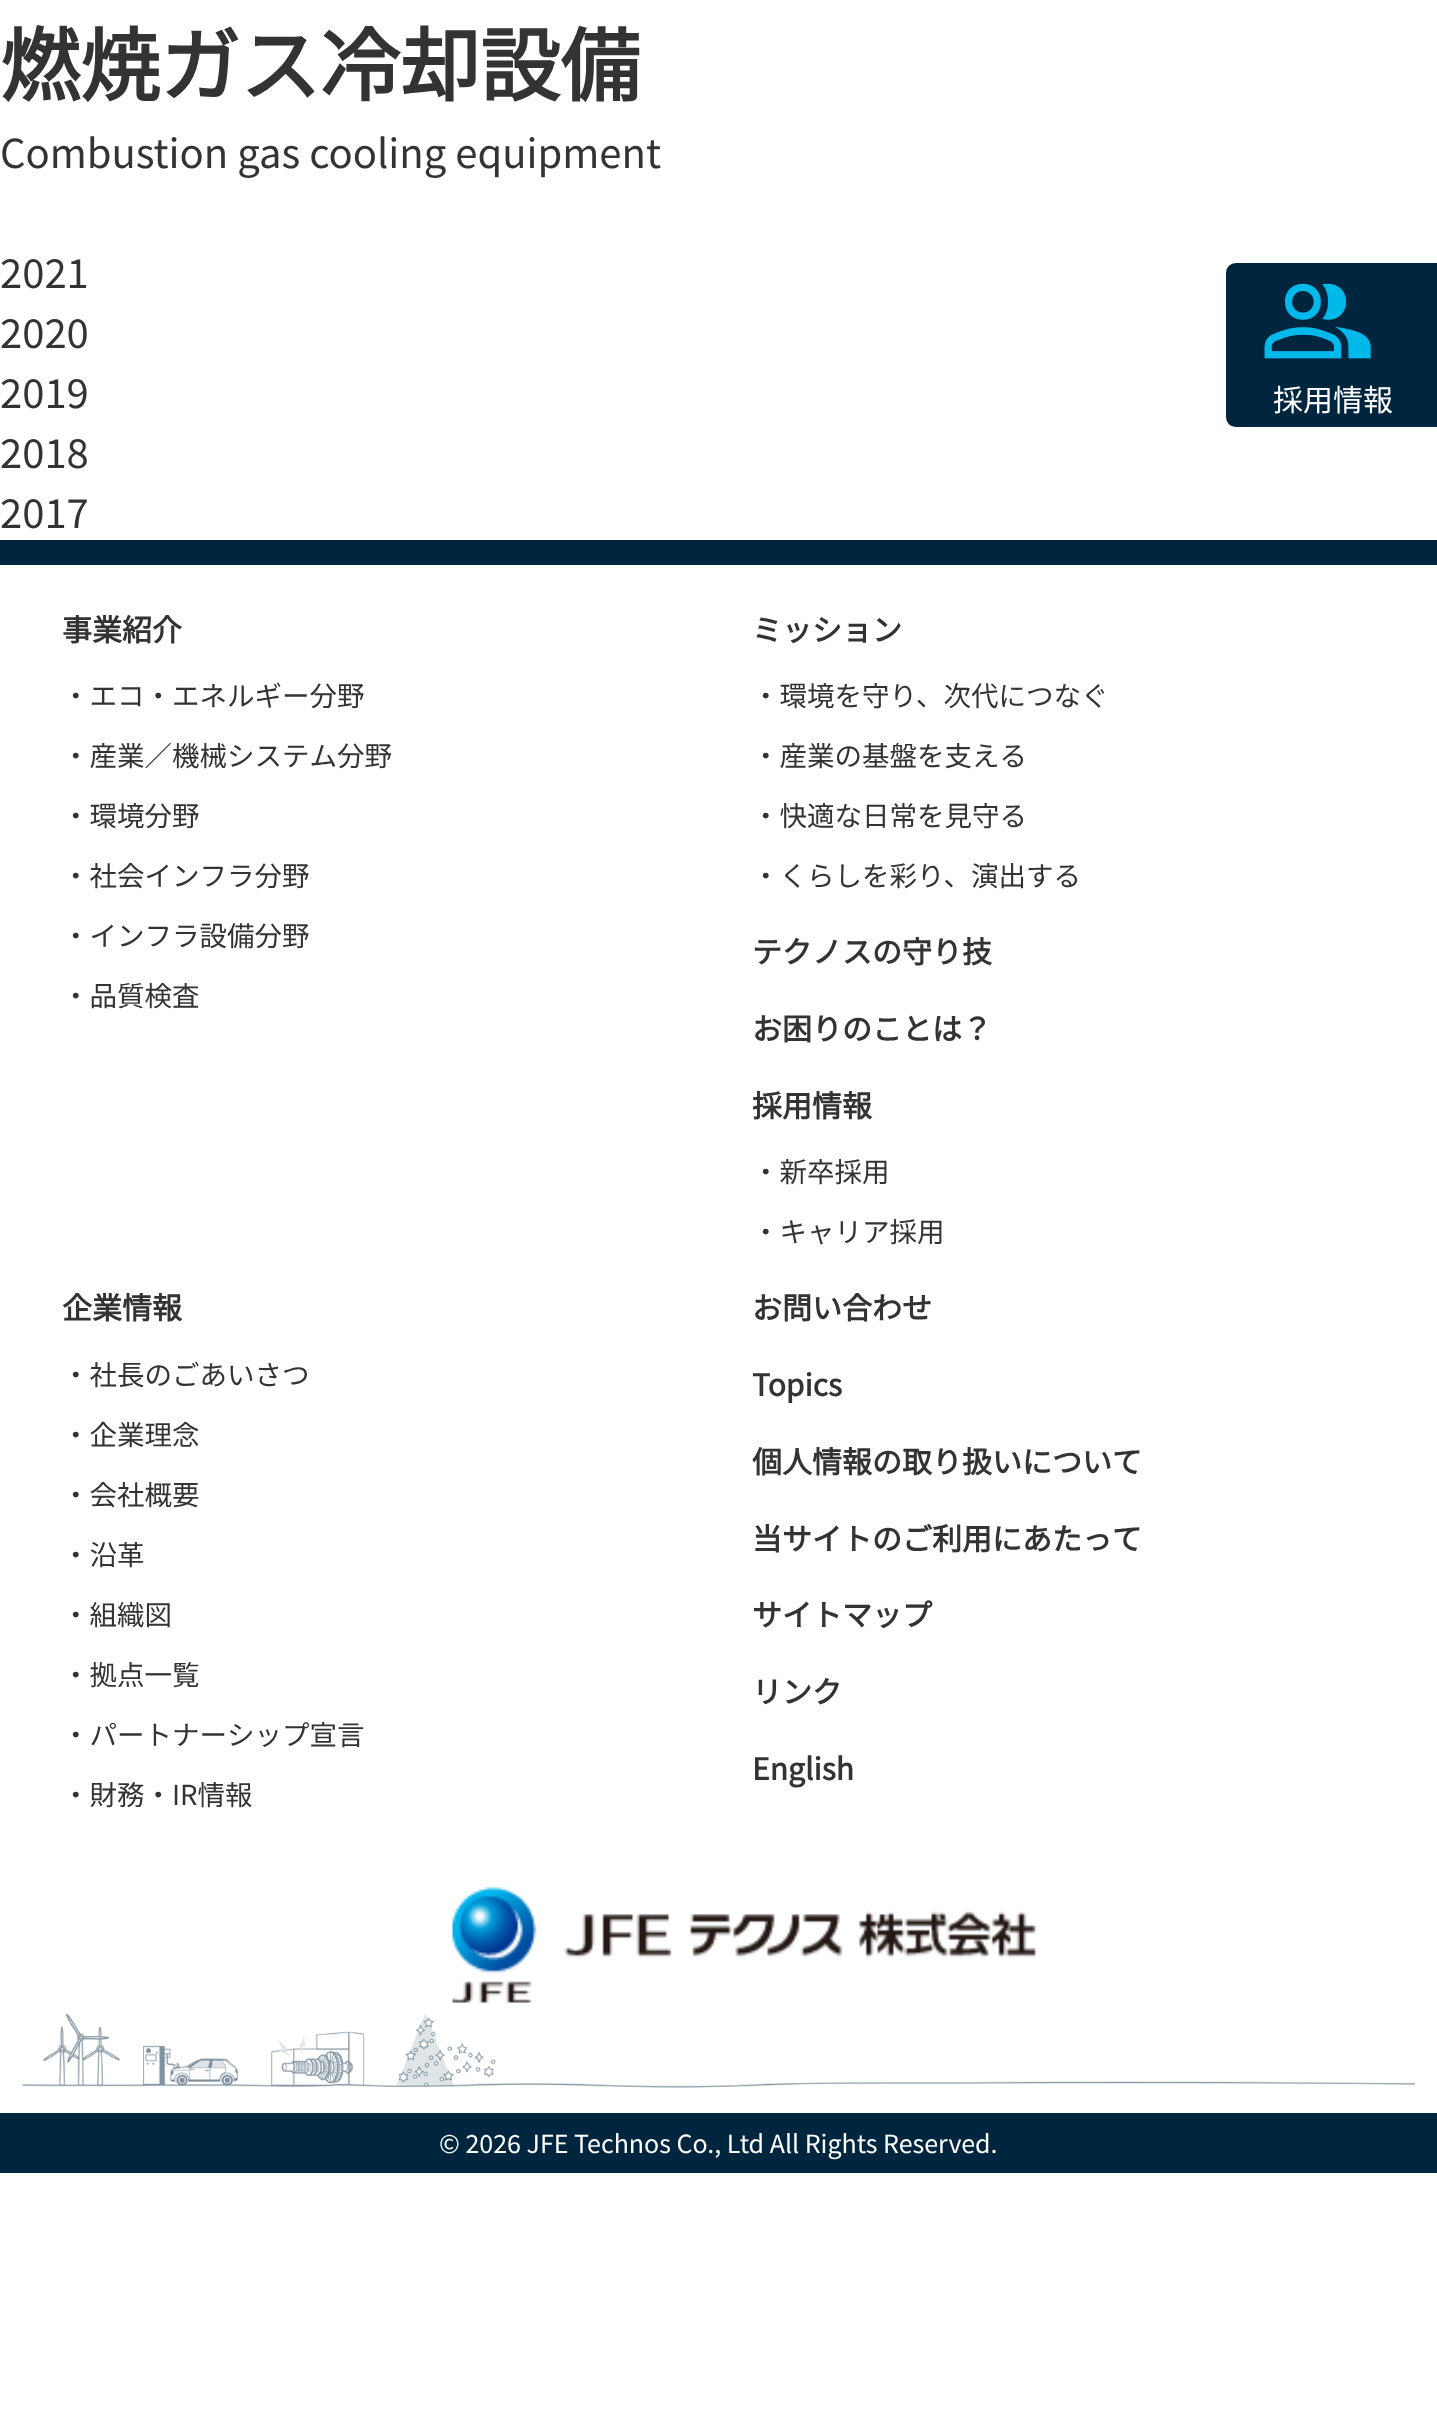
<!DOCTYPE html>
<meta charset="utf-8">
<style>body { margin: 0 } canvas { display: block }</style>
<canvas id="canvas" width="1437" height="2432"></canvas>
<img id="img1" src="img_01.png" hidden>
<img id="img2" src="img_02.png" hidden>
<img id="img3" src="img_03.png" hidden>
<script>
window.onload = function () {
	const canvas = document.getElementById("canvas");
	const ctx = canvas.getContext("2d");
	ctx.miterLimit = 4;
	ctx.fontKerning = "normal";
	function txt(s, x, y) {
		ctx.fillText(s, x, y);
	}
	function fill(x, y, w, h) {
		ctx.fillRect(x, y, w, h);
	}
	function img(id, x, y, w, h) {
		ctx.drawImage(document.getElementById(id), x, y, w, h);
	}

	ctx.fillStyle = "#FFFFFF";
	fill(0, 0, 1437, 2432);
	ctx.fillStyle = "#00253F";
	ctx.beginPath();
	ctx.moveTo(1236, 261.5);
	ctx.lineTo(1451.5, 261.5);
	ctx.lineTo(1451.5, 428.5);
	ctx.lineTo(1236, 428.5);
	ctx.bezierCurveTo(1229.5, 428.5, 1224.5, 423.5, 1224.5, 417);
	ctx.lineTo(1224.5, 273);
	ctx.bezierCurveTo(1224.5, 266.5, 1229.5, 261.5, 1236, 261.5);
	ctx.closePath();
	ctx.fill();
	ctx.strokeStyle = "#FFFFFF";
	ctx.lineWidth = 3;
	ctx.stroke();
	img("img1", 1264, 283, 107, 76);
	fill(0, 540, 1437, 25);
	img("img2", 22, 2013, 1393, 75);
	img("img3", 452, 1887, 584, 116);
	fill(0, 2113, 1437, 60);
	ctx.font = "bold 80px Noto Sans JP";
	ctx.fillStyle = "#333333";
	txt("燃焼ガス冷却設備", 0, 95);
	ctx.font = "100 40px Noto Sans JP";
	txt("Combustion gas cooling equipment", 0, 168);
	txt("2021", 0, 288);
	txt("2020", 0, 348);
	txt("2019", 0, 408);
	txt("2018", 0, 468);
	txt("2017", 0, 528);
	ctx.font = "100 30px Noto Sans JP";
	ctx.fillStyle = "#FFFFFF";
	txt("採用情報", 1273, 411);
	ctx.font = "bold 30px Noto Sans JP";
	ctx.fillStyle = "#333333";
	txt("事業紹介", 62, 641);
	ctx.font = "100 27.5px Noto Sans JP";
	txt("・エコ・エネルギー分野", 62, 706);
	txt("・産業／機械システム分野", 62, 766);
	txt("・環境分野", 62, 826);
	txt("・社会インフラ分野", 62, 886);
	txt("・インフラ設備分野", 62, 946);
	txt("・品質検査", 62, 1006);
	ctx.font = "bold 30px Noto Sans JP";
	txt("ミッション", 752, 641);
	ctx.font = "100 27.5px Noto Sans JP";
	txt("・環境を守り、次代につなぐ", 752, 706);
	txt("・産業の基盤を支える", 752, 766);
	txt("・快適な日常を見守る", 752, 826);
	txt("・くらしを彩り、演出する", 752, 886);
	ctx.font = "bold 30px Noto Sans JP";
	txt("テクノスの守り技", 752, 963);
	txt("お困りのことは？", 752, 1040);
	txt("採用情報", 752, 1117);
	ctx.font = "100 27.5px Noto Sans JP";
	txt("・新卒採用", 752, 1182);
	txt("・キャリア採用", 752, 1242);
	ctx.font = "bold 30px Noto Sans JP";
	txt("企業情報", 62, 1319);
	ctx.font = "100 27.5px Noto Sans JP";
	txt("・社長のごあいさつ", 62, 1385);
	txt("・企業理念", 62, 1445);
	txt("・会社概要", 62, 1505);
	txt("・沿革", 62, 1565);
	txt("・組織図", 62, 1625);
	txt("・拠点一覧", 62, 1685);
	txt("・パートナーシップ宣言", 62, 1745);
	txt("・財務・IR情報", 62, 1805);
	ctx.font = "bold 30px Noto Sans JP";
	txt("お問い合わせ", 752, 1319);
	txt("Topics", 752, 1396);
	txt("個人情報の取り扱いについて", 752, 1473);
	txt("当サイトのご利用にあたって", 752, 1550);
	txt("サイトマップ", 752, 1626);
	txt("リンク", 752, 1703);
	txt("English", 752, 1780);
	ctx.font = "100 25px Noto Sans JP";
	ctx.fillStyle = "#FFFFFF";
	txt("© 2026 JFE Technos Co., Ltd All Rights Reserved.", 439, 2153);
};
</script>
